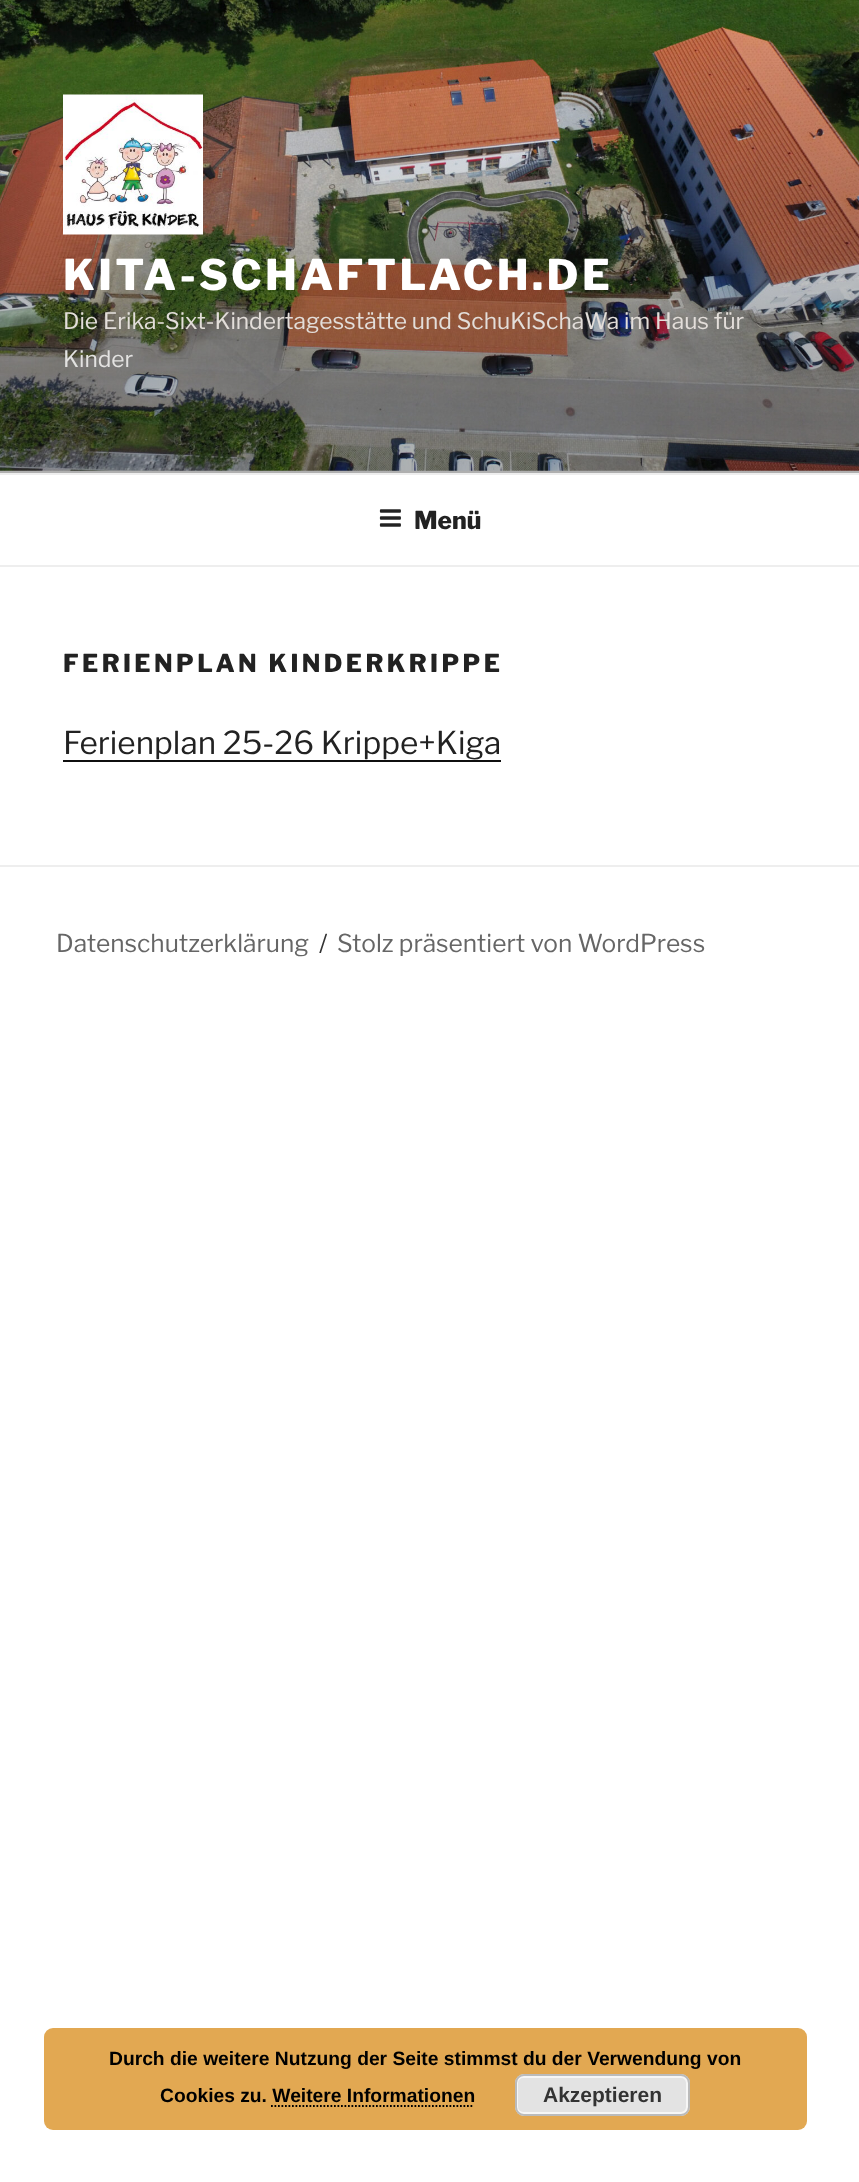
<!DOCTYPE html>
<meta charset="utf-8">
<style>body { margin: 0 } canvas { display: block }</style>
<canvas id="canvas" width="859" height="2182"></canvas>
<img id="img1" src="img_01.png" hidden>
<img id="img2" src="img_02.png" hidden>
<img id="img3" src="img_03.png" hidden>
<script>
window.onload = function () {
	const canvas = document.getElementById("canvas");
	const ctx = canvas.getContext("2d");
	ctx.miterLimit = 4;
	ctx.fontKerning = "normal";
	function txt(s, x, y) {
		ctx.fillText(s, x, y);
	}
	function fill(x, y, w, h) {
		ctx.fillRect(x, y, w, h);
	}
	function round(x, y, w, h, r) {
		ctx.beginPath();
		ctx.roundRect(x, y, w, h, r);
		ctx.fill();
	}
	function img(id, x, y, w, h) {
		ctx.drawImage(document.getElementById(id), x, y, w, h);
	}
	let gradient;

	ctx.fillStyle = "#FFFFFF";
	fill(0, 0, 859, 2182);
	ctx.fillStyle = "#FAFAFA";
	fill(0, 470, 859, 3);
	img("img1", 0, 0, 859, 471);
	gradient = ctx.createLinearGradient(430, 0, 430, 473);
	gradient.addColorStop(0, "rgba(0, 0, 0, 0)");
	gradient.addColorStop(0.75, "rgba(0, 0, 0, 0.3)");
	gradient.addColorStop(1, "rgba(0, 0, 0, 0.3)");
	ctx.fillStyle = gradient;
	fill(0, 26, 859, 447);
	img("img2", 63, 94, 140, 141);
	ctx.fillStyle = "#EEEEEE";
	fill(0, 473, 859, 2);
	fill(0, 565, 859, 2);
	img("img3", 379, 509, 22, 18);
	ctx.fillStyle = "#0F0F0F";
	fill(63, 760, 438, 2);
	ctx.fillStyle = "#EEEEEE";
	fill(0, 865, 859, 2);
	ctx.fillStyle = "#E2A852";
	round(44, 2028, 763, 102, 9);
	ctx.fillStyle = "#E3E3E3";
	round(515, 2074, 175, 42, 9);
	ctx.beginPath();
	ctx.roundRect(517, 2077, 170, 36, 6);
	ctx.strokeStyle = "#F6F6F6";
	ctx.lineWidth = 2;
	ctx.stroke();
	ctx.beginPath();
	ctx.roundRect(516, 2075, 173, 40, 8);
	ctx.strokeStyle = "#BBBBBB";
	ctx.stroke();
	ctx.beginPath();
	ctx.moveTo(271, 2106);
	ctx.lineTo(474, 2106);
	ctx.strokeStyle = "#000000";
	ctx.lineWidth = 1.8;
	ctx.setLineDash([1.75, 1.75]);
	ctx.stroke();
	ctx.letterSpacing = "3.4px";
	ctx.font = "100 42px Libre Franklin";
	ctx.fillStyle = "#FFFFFF";
	txt("KITA-SCHAFTLACH.DE", 63, 290);
	ctx.letterSpacing = "0px";
	ctx.font = "100 22.75px 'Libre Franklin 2'";
	ctx.fillStyle = "#E3DEDA";
	txt("Die Erika-Sixt-Kindertagesstätte und SchuKiSchaWa im Haus für", 63, 329);
	ctx.fillStyle = "#E3E2E1";
	txt("Kinder", 63, 367);
	ctx.font = "100 24.5px Libre Franklin";
	ctx.fillStyle = "#222222";
	txt("Menü", 414, 529);
	ctx.letterSpacing = "3.4px";
	txt("FERIENPLAN KINDERKRIPPE", 63, 672);
	ctx.letterSpacing = "0px";
	ctx.font = "100 31.5px 'Libre Franklin 2'";
	txt("Ferienplan 25-26 Krippe+Kiga", 63, 754);
	ctx.font = "100 24.5px 'Libre Franklin 2'";
	ctx.fillStyle = "#666666";
	txt("Datenschutzerklärung", 56, 952);
	ctx.fillStyle = "#333333";
	txt("/", 319, 952);
	ctx.fillStyle = "#666666";
	txt("Stolz präsentiert von WordPress", 337, 952);
	ctx.font = "bold 19.25px Liberation Sans";
	ctx.fillStyle = "#000000";
	txt("Durch die weitere Nutzung der Seite stimmst du der Verwendung von", 109, 2065);
	txt("Cookies zu. Weitere Informationen", 160, 2102);
	ctx.font = "bold 21px Liberation Sans";
	ctx.fillStyle = "#333333";
	txt("Akzeptieren", 543, 2102);
};
</script>
